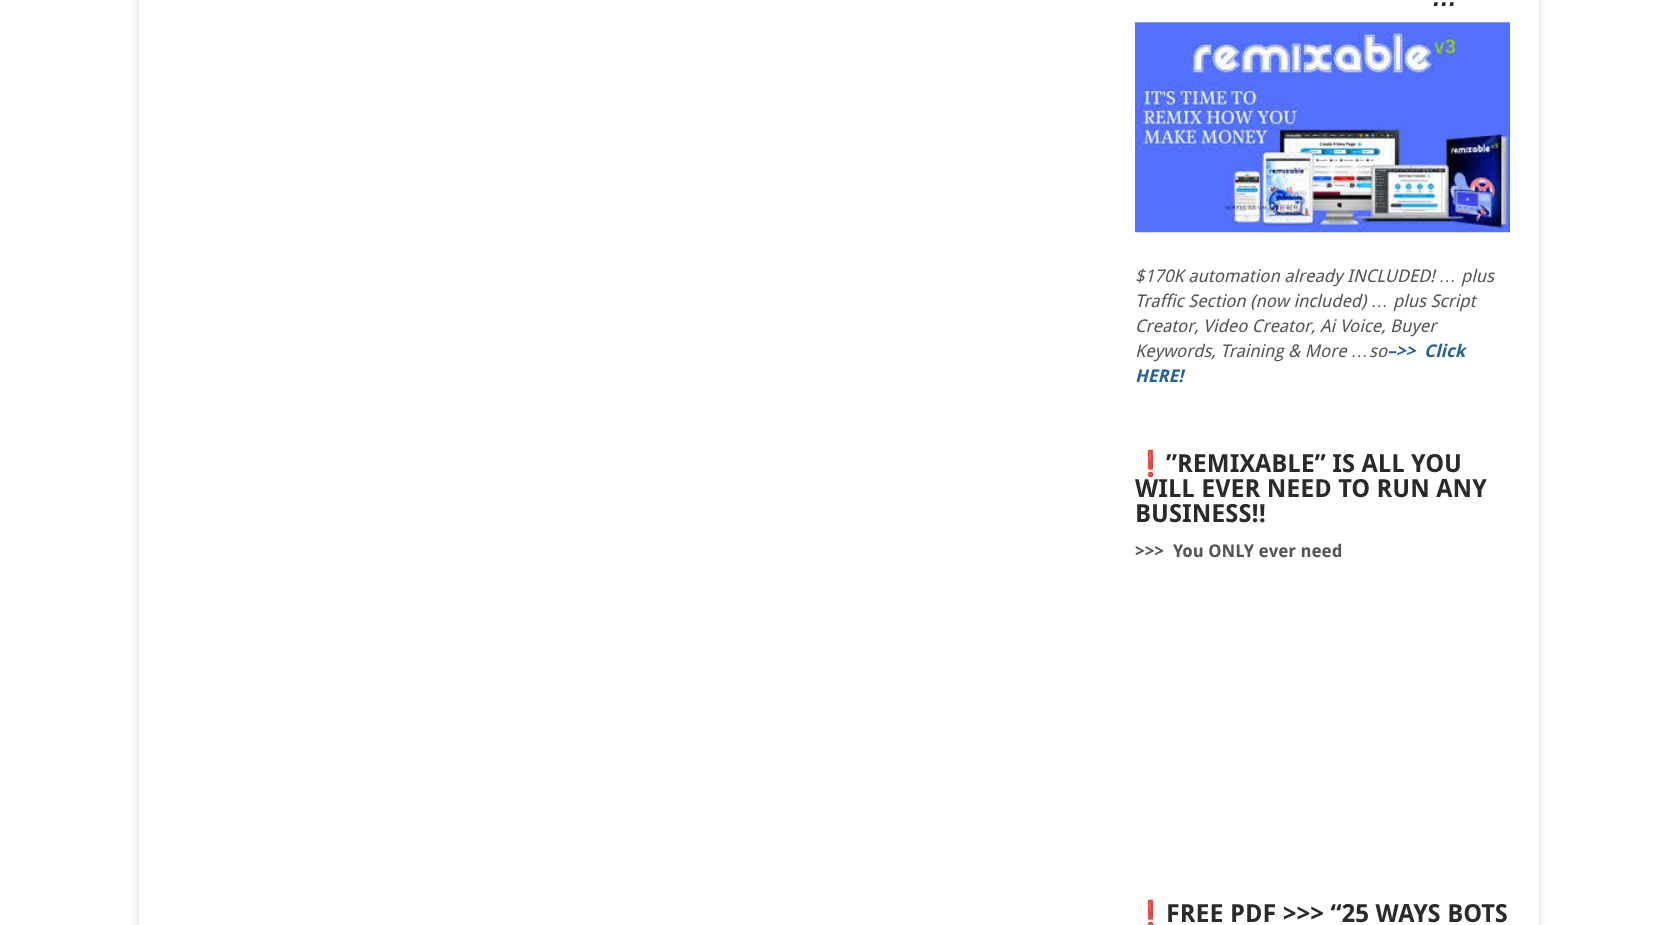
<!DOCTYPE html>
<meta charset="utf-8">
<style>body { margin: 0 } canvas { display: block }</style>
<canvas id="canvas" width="1676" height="925"></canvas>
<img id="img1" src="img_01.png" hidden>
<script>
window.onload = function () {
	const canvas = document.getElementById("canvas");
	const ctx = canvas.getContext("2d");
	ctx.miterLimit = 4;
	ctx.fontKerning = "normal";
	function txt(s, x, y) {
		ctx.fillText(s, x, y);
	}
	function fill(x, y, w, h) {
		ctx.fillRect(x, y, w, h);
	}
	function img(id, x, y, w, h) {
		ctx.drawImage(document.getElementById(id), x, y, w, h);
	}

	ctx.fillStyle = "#FFFFFF";
	fill(0, 0, 1676, 925);
	ctx.fillStyle = "rgba(50, 50, 50, 0.17)";
	ctx.filter = "blur(6px)";
	ctx.beginPath();
	ctx.rect(139, -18, 1400, 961);
	ctx.fill();
	ctx.filter = "none";
	ctx.fillStyle = "#FFFFFF";
	fill(139, 0, 1400, 925);
	img("img1", 1135, 22, 375, 211);
	ctx.font = "italic bold 25px Liberation Sans";
	ctx.fillStyle = "#2A2A2A";
	txt("…", 1432, 6);
	ctx.font = "italic 17.5px Droid Sans";
	ctx.fillStyle = "#555555";
	txt("$170K automation already INCLUDED!", 1135, 282);
	ctx.font = "italic 17.5px Liberation Sans";
	txt("…", 1439, 282);
	ctx.font = "italic 17.5px Droid Sans";
	txt("plus", 1461, 282);
	txt("Traffic Section (now included)", 1135, 307);
	ctx.font = "italic 17.5px Liberation Sans";
	txt("…", 1371, 307);
	ctx.font = "italic 17.5px Droid Sans";
	txt("plus Script", 1393, 307);
	txt("Creator, Video Creator, Ai Voice, Buyer", 1135, 332);
	txt("Keywords, Training & More", 1135, 357);
	ctx.font = "italic 17.5px Liberation Sans";
	txt("…", 1351, 357);
	ctx.font = "italic 17.5px Droid Sans";
	txt("so", 1369, 357);
	ctx.font = "italic bold 17.5px Droid Sans";
	ctx.fillStyle = "#266296";
	txt("–>>  Click", 1387, 357);
	txt("HERE!", 1135, 382);
	ctx.font = "bold 25px Noto Color Emoji";
	ctx.fillStyle = "#2A2A2A";
	txt("❗️", 1135, 472);
	ctx.font = "bold 25px Droid Sans";
	txt("”REMIXABLE” IS ALL YOU", 1166, 472);
	txt("WILL EVER NEED TO RUN ANY", 1135, 497);
	txt("BUSINESS!!", 1135, 522);
	ctx.font = "bold 17.5px Droid Sans";
	ctx.fillStyle = "#555555";
	txt(">>>  You ONLY ever need", 1135, 557);
	ctx.font = "bold 25px Noto Color Emoji";
	ctx.fillStyle = "#2A2A2A";
	txt("❗️", 1135, 922);
	ctx.font = "bold 25px Droid Sans";
	txt("FREE PDF >>> “25 WAYS BOTS", 1166, 922);
};
</script>
